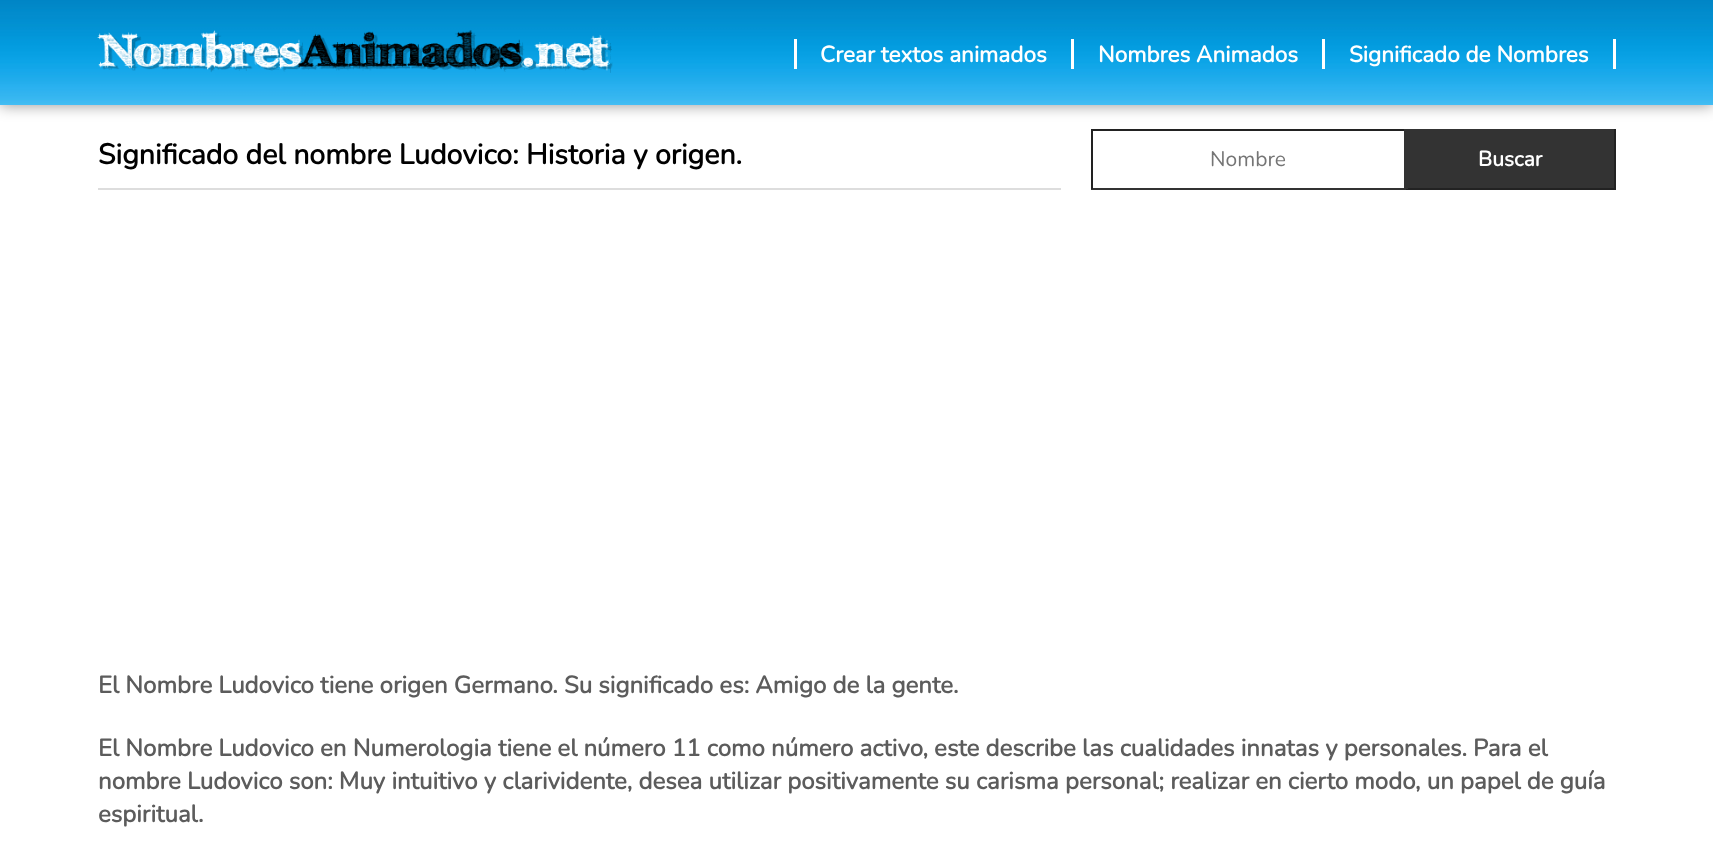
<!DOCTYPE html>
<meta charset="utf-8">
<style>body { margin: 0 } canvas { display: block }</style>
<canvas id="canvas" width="1713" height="856"></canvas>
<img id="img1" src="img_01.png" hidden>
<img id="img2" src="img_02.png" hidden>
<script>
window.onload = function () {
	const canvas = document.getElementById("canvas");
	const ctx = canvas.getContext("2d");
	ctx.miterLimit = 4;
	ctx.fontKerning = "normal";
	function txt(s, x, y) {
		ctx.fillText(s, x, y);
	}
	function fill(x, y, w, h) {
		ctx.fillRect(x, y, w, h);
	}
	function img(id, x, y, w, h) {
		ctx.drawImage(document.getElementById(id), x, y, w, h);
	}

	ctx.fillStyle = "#FFFFFF";
	fill(0, 0, 1713, 856);
	ctx.fillStyle = "rgba(0, 0, 0, 0.43)";
	ctx.filter = "blur(7.5px)";
	ctx.beginPath();
	ctx.rect(0, 0, 1713, 105);
	ctx.fill();
	ctx.filter = "none";
	img("img1", 0, 0, 1713, 105);
	img("img2", 97, 30, 516, 43);
	ctx.fillStyle = "#FFFFFF";
	fill(794, 39, 3, 30);
	fill(1071, 39, 3, 30);
	fill(1613, 39, 3, 30);
	fill(1322, 39, 3, 30);
	ctx.fillStyle = "#DDDDDD";
	fill(98, 188, 963, 2);
	ctx.fillStyle = "#222222";
	fill(1091, 129, 315, 2);
	ctx.fillStyle = "#333333";
	fill(1404, 129, 2, 60);
	fill(1091, 188, 315, 2);
	ctx.fillStyle = "#222222";
	fill(1091, 129, 2, 60);
	ctx.fillStyle = "#333333";
	fill(1408, 129, 206, 59);
	ctx.fillStyle = "#222222";
	fill(1614, 129, 2, 60);
	fill(1406, 188, 210, 2);
	ctx.fillStyle = "#333333";
	fill(1406, 129, 2, 60);
	ctx.font = "bold 22.5px Nunito";
	ctx.fillStyle = "#FFFFFF";
	txt("Crear textos animados", 820, 62);
	txt("Nombres Animados", 1098, 62);
	txt("Significado de Nombres", 1349, 62);
	ctx.font = "bold 28.5px Nunito";
	ctx.fillStyle = "#000000";
	txt("Significado del nombre Ludovico: Historia y origen.", 98, 164);
	ctx.font = "200 21px Nunito";
	ctx.fillStyle = "#757575";
	txt("Nombre", 1210, 166);
	ctx.font = "bold 21px Nunito";
	ctx.fillStyle = "#FFFFFF";
	txt("Buscar", 1478, 166);
	ctx.font = "bold 24px Nunito";
	ctx.fillStyle = "#5C5C5C";
	txt("El Nombre Ludovico tiene origen Germano. Su significado es: Amigo de la gente.", 98, 693);
	txt("El Nombre Ludovico en Numerologia tiene el número 11 como número activo, este describe las cualidades innatas y personales. Para el", 98, 756);
	txt("nombre Ludovico son: Muy intuitivo y clarividente, desea utilizar positivamente su carisma personal; realizar en cierto modo, un papel de guía", 98, 789);
	txt("espiritual.", 98, 822);
};
</script>
